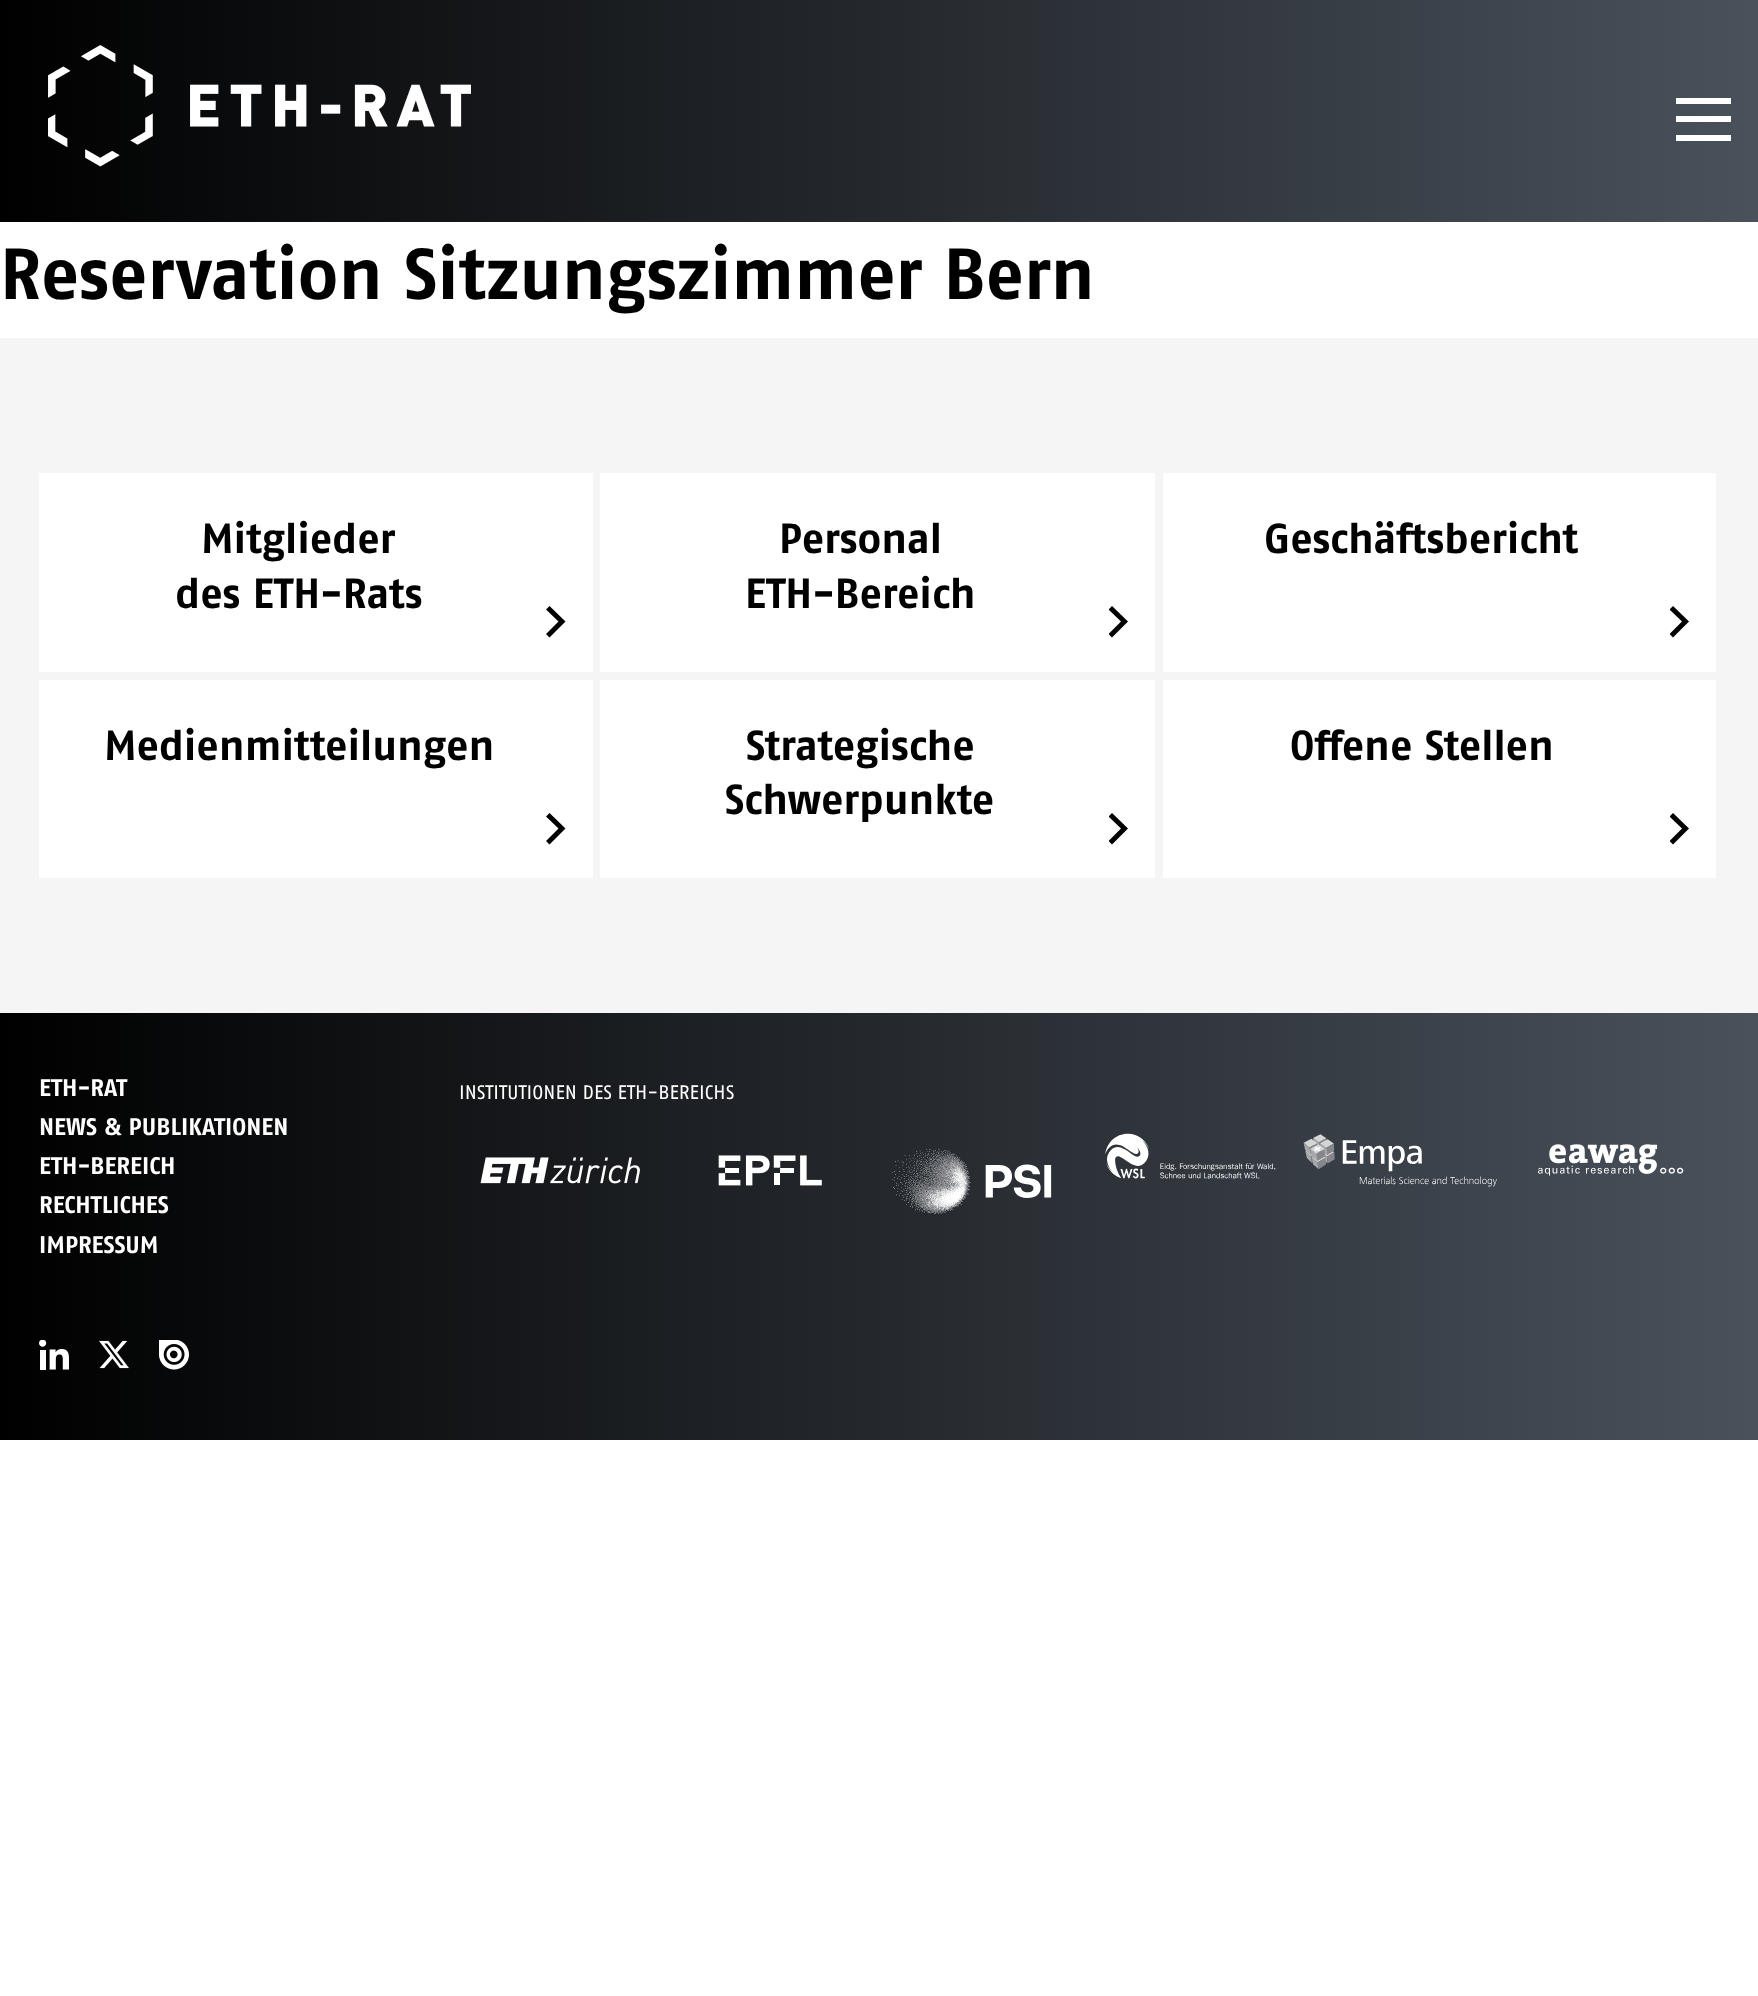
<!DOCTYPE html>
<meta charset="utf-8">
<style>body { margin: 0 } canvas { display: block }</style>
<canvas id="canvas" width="1758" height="1996"></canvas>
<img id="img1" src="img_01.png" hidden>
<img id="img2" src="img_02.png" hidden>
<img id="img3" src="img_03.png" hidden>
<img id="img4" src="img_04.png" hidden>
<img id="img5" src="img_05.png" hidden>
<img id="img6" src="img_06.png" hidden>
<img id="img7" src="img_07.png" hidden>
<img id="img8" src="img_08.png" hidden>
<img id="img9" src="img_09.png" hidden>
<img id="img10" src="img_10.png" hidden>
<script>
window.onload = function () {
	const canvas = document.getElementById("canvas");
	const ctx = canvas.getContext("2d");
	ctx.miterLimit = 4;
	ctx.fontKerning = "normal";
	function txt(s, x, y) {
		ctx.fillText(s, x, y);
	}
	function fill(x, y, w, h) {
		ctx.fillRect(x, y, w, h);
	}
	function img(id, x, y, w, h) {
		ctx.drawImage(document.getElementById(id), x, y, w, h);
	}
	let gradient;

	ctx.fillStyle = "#FFFFFF";
	fill(0, 0, 1758, 1996);
	gradient = ctx.createLinearGradient(0, 111, 1758, 111);
	gradient.addColorStop(0, "#000000");
	gradient.addColorStop(1, "#49515B");
	ctx.fillStyle = gradient;
	fill(0, 0, 1758, 222);
	img("img1", 48, 45, 423, 122);
	ctx.fillStyle = "#FFFFFF";
	ctx.beginPath();
	ctx.moveTo(1676, 141);
	ctx.lineTo(1731, 141);
	ctx.lineTo(1731, 135);
	ctx.lineTo(1676, 135);
	ctx.closePath();
	ctx.moveTo(1676, 122);
	ctx.lineTo(1731, 122);
	ctx.lineTo(1731, 116);
	ctx.lineTo(1676, 116);
	ctx.closePath();
	ctx.moveTo(1676, 104);
	ctx.lineTo(1731, 104);
	ctx.lineTo(1731, 98);
	ctx.lineTo(1676, 98);
	ctx.closePath();
	ctx.fill();
	ctx.fillStyle = "#F5F5F5";
	fill(0, 338, 1758, 675);
	ctx.fillStyle = "#FFFFFF";
	fill(39, 473, 554, 199);
	ctx.fillStyle = "#000000";
	ctx.beginPath();
	ctx.moveTo(546, 634);
	ctx.lineTo(558.5, 621.5);
	ctx.lineTo(546, 609.5);
	ctx.lineTo(549.5, 606);
	ctx.lineTo(565.5, 621.5);
	ctx.lineTo(549.5, 637.5);
	ctx.closePath();
	ctx.fill();
	ctx.fillStyle = "#FFFFFF";
	fill(600, 473, 555, 199);
	ctx.save();
	ctx.beginPath();
	ctx.rect(1109, 606, 19, 32);
	ctx.clip();
	ctx.fillStyle = "#000000";
	ctx.beginPath();
	ctx.moveTo(1108.5, 634);
	ctx.lineTo(1121, 621.5);
	ctx.lineTo(1108.5, 609.5);
	ctx.lineTo(1112, 606);
	ctx.lineTo(1128, 621.5);
	ctx.lineTo(1112, 637.5);
	ctx.closePath();
	ctx.fill();
	ctx.restore();
	fill(1163, 473, 553, 199);
	ctx.save();
	ctx.beginPath();
	ctx.rect(1670, 606, 19, 32);
	ctx.clip();
	ctx.fillStyle = "#000000";
	ctx.beginPath();
	ctx.moveTo(1669.5, 634);
	ctx.lineTo(1682, 621.5);
	ctx.lineTo(1669.5, 609.5);
	ctx.lineTo(1673, 606);
	ctx.lineTo(1689, 621.5);
	ctx.lineTo(1673, 637.5);
	ctx.closePath();
	ctx.fill();
	ctx.restore();
	fill(39, 680, 554, 198);
	ctx.fillStyle = "#000000";
	ctx.beginPath();
	ctx.moveTo(546, 841);
	ctx.lineTo(558.5, 828.5);
	ctx.lineTo(546, 816.5);
	ctx.lineTo(549.5, 813);
	ctx.lineTo(565.5, 828.5);
	ctx.lineTo(549.5, 844.5);
	ctx.closePath();
	ctx.fill();
	ctx.fillStyle = "#FFFFFF";
	fill(600, 680, 555, 198);
	ctx.save();
	ctx.beginPath();
	ctx.rect(1109, 813, 19, 32);
	ctx.clip();
	ctx.fillStyle = "#000000";
	ctx.beginPath();
	ctx.moveTo(1108.5, 841);
	ctx.lineTo(1121, 828.5);
	ctx.lineTo(1108.5, 816.5);
	ctx.lineTo(1112, 813);
	ctx.lineTo(1128, 828.5);
	ctx.lineTo(1112, 844.5);
	ctx.closePath();
	ctx.fill();
	ctx.restore();
	fill(1163, 680, 553, 198);
	ctx.save();
	ctx.beginPath();
	ctx.rect(1670, 813, 19, 32);
	ctx.clip();
	ctx.fillStyle = "#000000";
	ctx.beginPath();
	ctx.moveTo(1669.5, 841);
	ctx.lineTo(1682, 828.5);
	ctx.lineTo(1669.5, 816.5);
	ctx.lineTo(1673, 813);
	ctx.lineTo(1689, 828.5);
	ctx.lineTo(1673, 844.5);
	ctx.closePath();
	ctx.fill();
	ctx.restore();
	gradient = ctx.createLinearGradient(0, 1226, 1758, 1226);
	gradient.addColorStop(0, "#000000");
	gradient.addColorStop(1, "#49515B");
	ctx.fillStyle = gradient;
	fill(0, 1013, 1758, 427);
	img("img2", 480, 1157, 160, 27);
	img("img3", 718, 1155, 104, 31);
	img("img4", 891, 1148, 161, 66);
	img("img5", 1105, 1133, 171, 46);
	img("img6", 1303, 1134, 194, 53);
	img("img7", 1538, 1144, 146, 32);
	img("img8", 39, 1340, 30, 30);
	img("img9", 99, 1340, 30, 29);
	img("img10", 159, 1340, 30, 30);
	ctx.font = "bold 72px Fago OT";
	ctx.fillStyle = "#000000";
	txt("Reservation Sitzungszimmer Bern", 0, 299);
	ctx.font = "bold 42px Fago OT";
	txt("Mitglieder", 201, 553);
	txt("des ETH-Rats", 175, 608);
	txt("Personal", 779, 553);
	txt("ETH-Bereich", 745, 608);
	txt("Geschäftsbericht", 1264, 553);
	txt("Medienmitteilungen", 104, 760);
	txt("Strategische", 746, 760);
	txt("Schwerpunkte", 725, 814);
	txt("Offene Stellen", 1290, 760);
	ctx.font = "bold 24px Fago OT";
	ctx.fillStyle = "#FFFFFF";
	txt("ETH-RAT", 39, 1096);
	txt("NEWS & PUBLIKATIONEN", 39, 1135);
	txt("ETH-BEREICH", 39, 1174);
	txt("RECHTLICHES", 39, 1213);
	txt("IMPRESSUM", 39, 1253);
	ctx.font = "19.5px Fago OT";
	txt("INSTITUTIONEN DES ETH-BEREICHS", 459, 1099);
};
</script>
